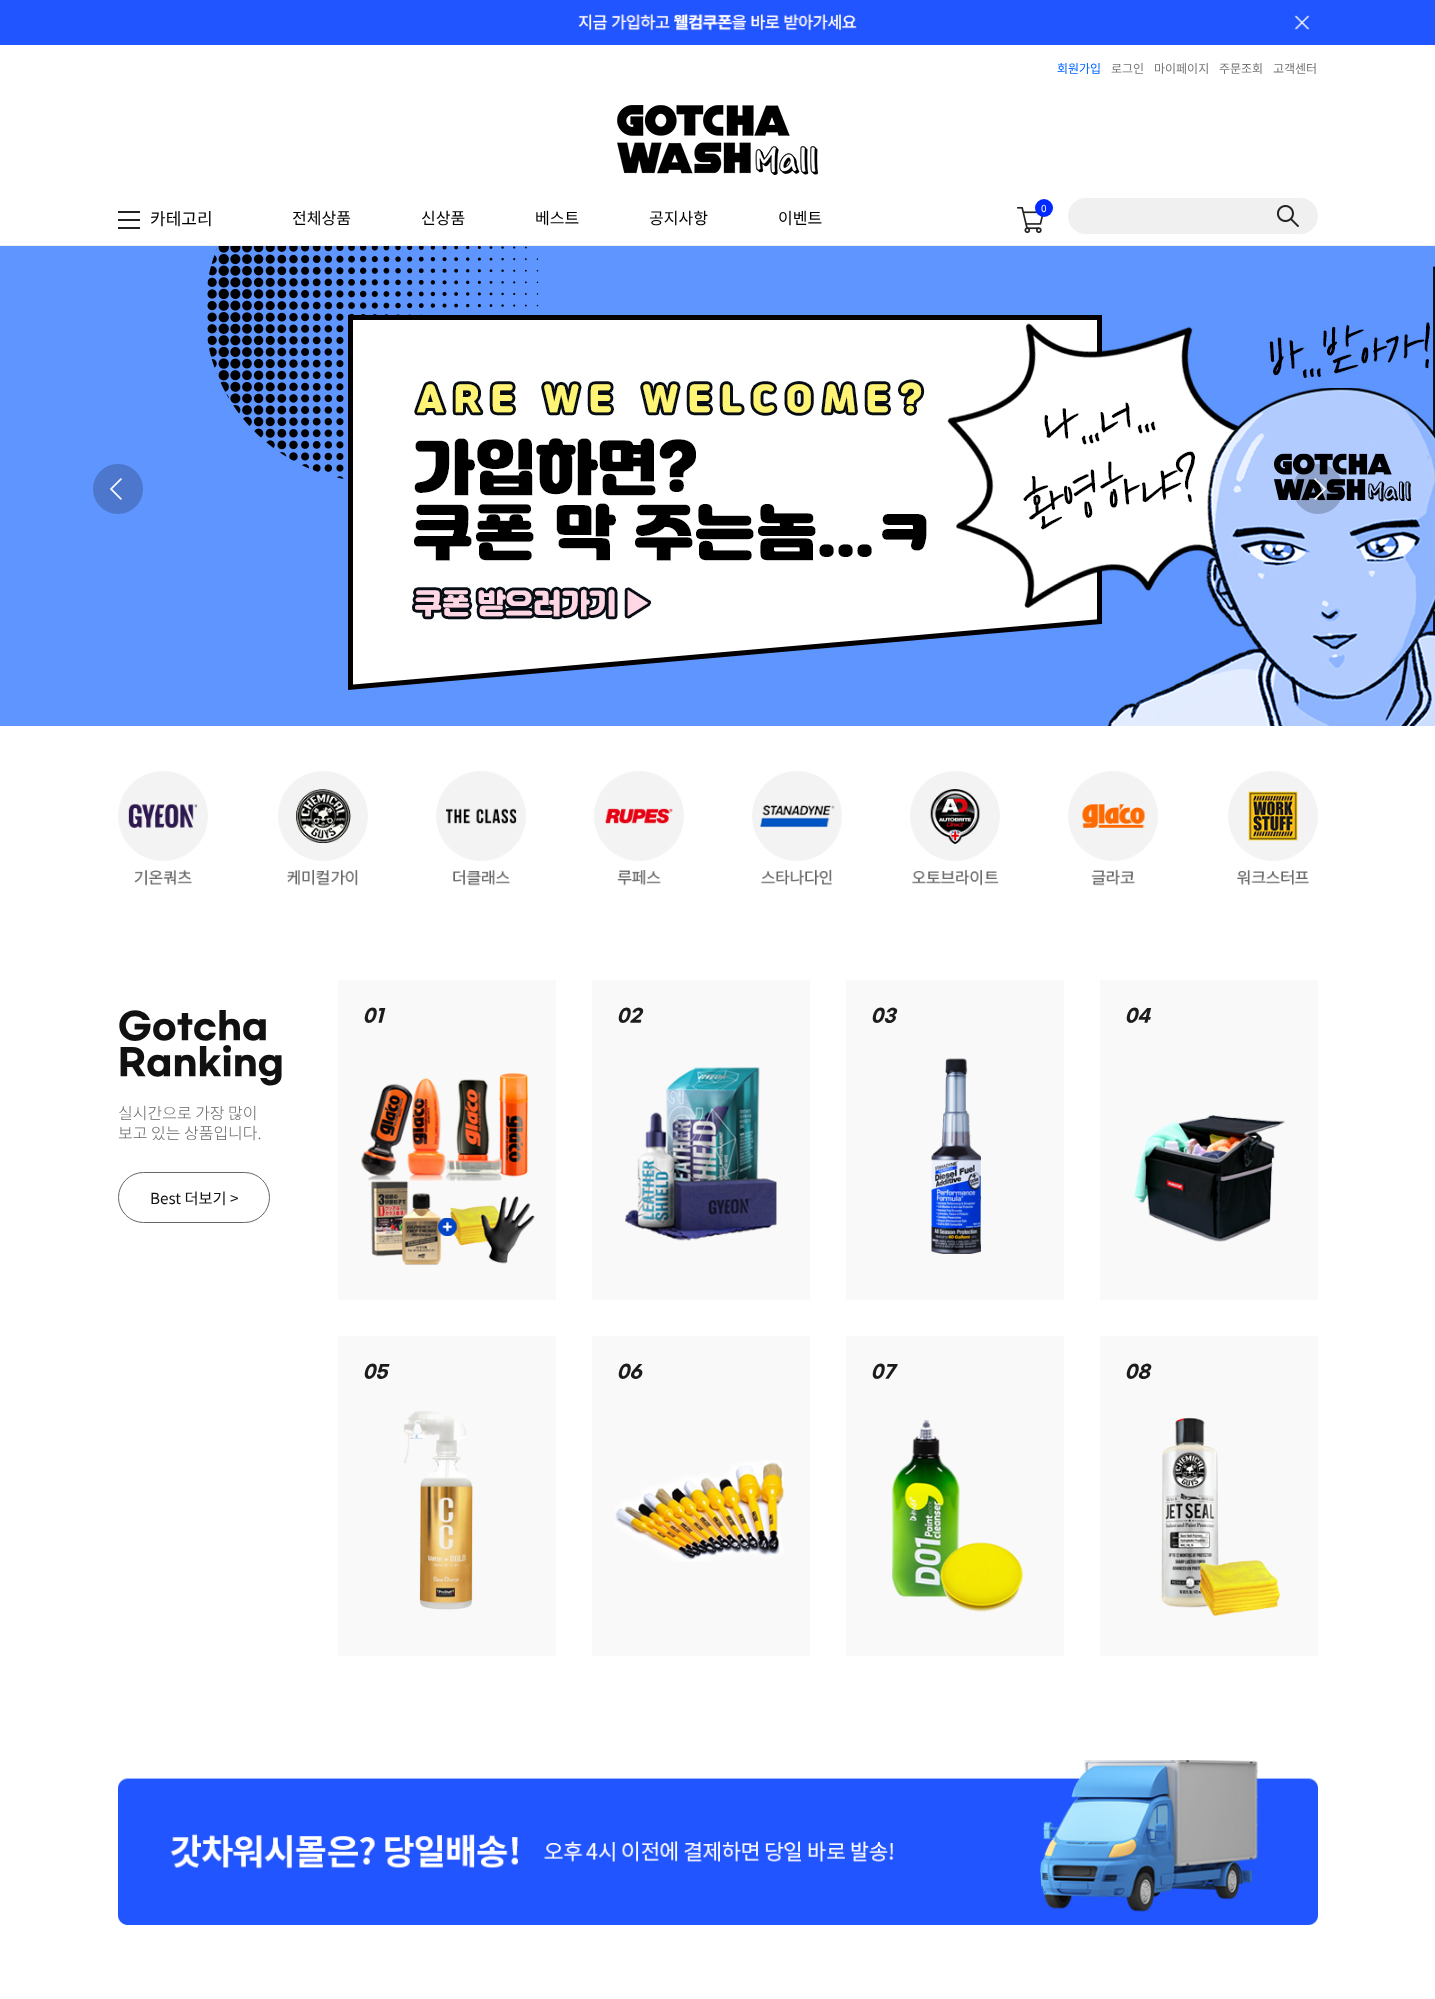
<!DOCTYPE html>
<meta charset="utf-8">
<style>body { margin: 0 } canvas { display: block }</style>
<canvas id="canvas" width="1435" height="1999"></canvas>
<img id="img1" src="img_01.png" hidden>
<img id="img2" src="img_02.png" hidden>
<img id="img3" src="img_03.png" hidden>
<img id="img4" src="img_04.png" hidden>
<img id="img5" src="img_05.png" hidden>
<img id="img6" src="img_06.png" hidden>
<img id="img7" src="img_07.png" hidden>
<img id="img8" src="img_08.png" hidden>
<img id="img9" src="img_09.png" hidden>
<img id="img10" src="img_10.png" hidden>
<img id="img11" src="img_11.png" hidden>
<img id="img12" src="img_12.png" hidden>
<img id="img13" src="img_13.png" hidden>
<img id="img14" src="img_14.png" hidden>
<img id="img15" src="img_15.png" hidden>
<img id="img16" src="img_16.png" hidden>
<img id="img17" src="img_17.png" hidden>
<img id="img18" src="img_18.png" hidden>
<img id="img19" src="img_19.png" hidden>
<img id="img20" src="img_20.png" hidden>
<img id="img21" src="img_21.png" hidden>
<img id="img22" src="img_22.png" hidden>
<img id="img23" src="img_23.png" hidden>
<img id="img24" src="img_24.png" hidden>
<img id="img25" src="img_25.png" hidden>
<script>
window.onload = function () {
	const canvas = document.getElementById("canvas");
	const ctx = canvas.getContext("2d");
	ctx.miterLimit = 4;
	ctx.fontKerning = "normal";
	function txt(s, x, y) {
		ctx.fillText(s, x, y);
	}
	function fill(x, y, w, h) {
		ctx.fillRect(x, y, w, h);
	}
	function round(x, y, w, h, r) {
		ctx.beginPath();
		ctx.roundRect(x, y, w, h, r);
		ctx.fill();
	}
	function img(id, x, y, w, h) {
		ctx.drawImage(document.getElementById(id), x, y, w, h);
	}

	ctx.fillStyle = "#FFFFFF";
	fill(0, 0, 1435, 1999);
	ctx.fillStyle = "#2155FF";
	fill(0, 0, 1435, 45);
	img("img1", 578, 11, 732, 20);
	img("img2", 617, 105, 201, 70);
	ctx.fillStyle = "#F0F0F0";
	fill(0, 245, 1435, 1);
	img("img3", 1017, 207, 27, 26);
	ctx.fillStyle = "#002AFF";
	ctx.beginPath();
	ctx.arc(1044, 208, 9, 0, Math.PI * 2);
	ctx.fill();
	ctx.fillStyle = "#F0F0F0";
	round(1068, 198, 250, 36, 18);
	img("img4", 1276, 205, 23, 22);
	img("img5", 118, 211, 22, 18);
	img("img6", 0, 246, 1435, 480);
	img("img7", 93, 464, 50, 50);
	img("img8", 1293, 464, 50, 50);
	img("img9", 118, 771, 90, 115);
	img("img10", 278, 771, 90, 115);
	img("img11", 436, 771, 90, 115);
	img("img12", 594, 771, 90, 115);
	img("img13", 752, 771, 90, 115);
	img("img14", 910, 771, 90, 115);
	img("img15", 1068, 771, 90, 115);
	img("img16", 1228, 771, 90, 115);
	ctx.fillStyle = "#F9F9F9";
	fill(338, 980, 218, 320);
	img("img17", 361, 1073, 174, 192);
	fill(592, 980, 218, 320);
	img("img18", 625, 1067, 152, 174);
	fill(846, 980, 218, 320);
	img("img19", 931, 1058, 50, 196);
	fill(1100, 980, 218, 320);
	img("img20", 1133, 1115, 152, 127);
	fill(338, 1336, 218, 320);
	img("img21", 403, 1411, 70, 199);
	fill(592, 1336, 218, 320);
	img("img22", 615, 1460, 169, 102);
	fill(846, 1336, 218, 320);
	img("img23", 892, 1420, 132, 192);
	fill(1100, 1336, 218, 320);
	img("img24", 1161, 1417, 119, 200);
	ctx.beginPath();
	ctx.roundRect(118.5, 1172.5, 151, 50, 25);
	ctx.strokeStyle = "#666666";
	ctx.stroke();
	img("img25", 118, 1760, 1200, 165);
	ctx.font = "12px Noto Sans KR";
	ctx.fillStyle = "#0064FF";
	txt("회원가입", 1057, 73);
	ctx.fillStyle = "#757575";
	txt("로그인", 1111, 73);
	txt("마이페이지", 1154, 73);
	txt("주문조회", 1219, 73);
	txt("고객센터", 1273, 73);
	ctx.font = "10px Noto Sans KR";
	ctx.fillStyle = "#FFFFFF";
	txt("0", 1041, 212);
	ctx.font = "17px Noto Sans KR";
	ctx.fillStyle = "#000000";
	txt("카테고리", 150, 225);
	ctx.font = "16px Noto Sans KR";
	txt("전체상품", 292, 224);
	txt("신상품", 421, 224);
	txt("베스트", 535, 224);
	txt("공지사항", 649, 224);
	txt("이벤트", 778, 224);
	ctx.font = "bold 36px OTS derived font";
	ctx.fillStyle = "#111111";
	txt("Gotcha", 118, 1037);
	txt("Ranking", 118, 1073);
	ctx.font = "italic bold 18px OTS derived font";
	ctx.fillStyle = "#1C1C1C";
	txt("01", 363, 1021);
	txt("02", 617, 1021);
	txt("03", 871, 1021);
	txt("04", 1125, 1021);
	txt("05", 363, 1377);
	txt("06", 617, 1377);
	txt("07", 871, 1377);
	txt("08", 1125, 1377);
	ctx.font = "300 16px Noto Sans KR";
	ctx.fillStyle = "#666666";
	txt("실시간으로 가장 많이", 118, 1119);
	txt("보고 있는 상품입니다.", 118, 1139);
	ctx.font = "15.25px Noto Sans KR";
	ctx.fillStyle = "#111111";
	txt("Best 더보기 >", 150, 1204);
};
</script>
